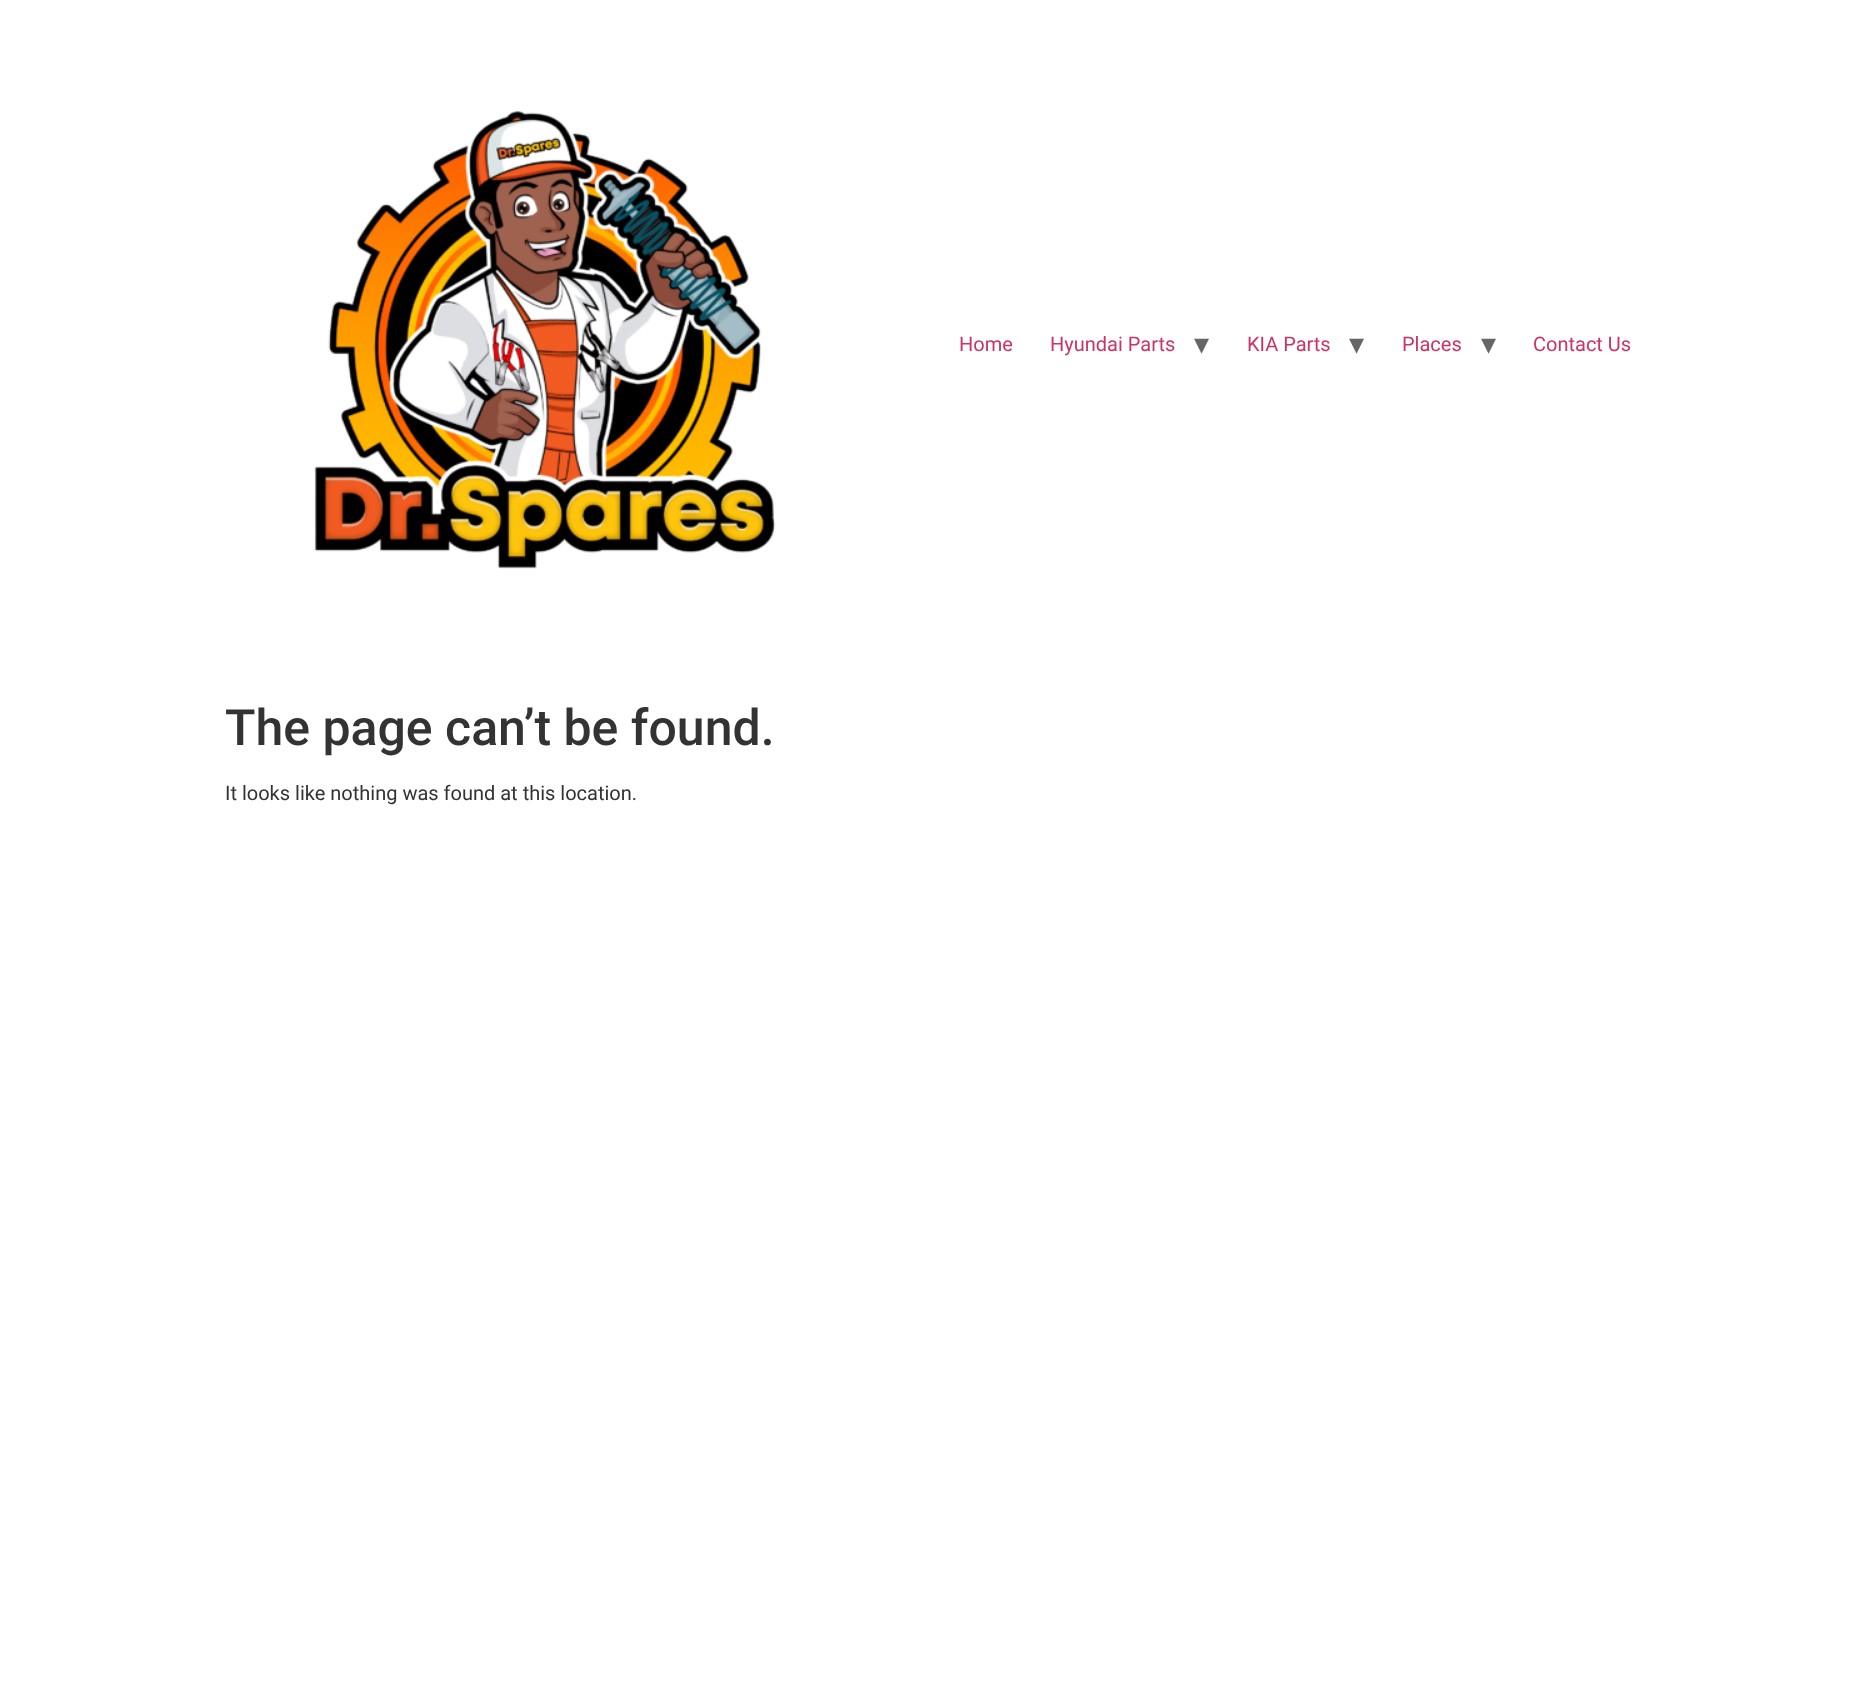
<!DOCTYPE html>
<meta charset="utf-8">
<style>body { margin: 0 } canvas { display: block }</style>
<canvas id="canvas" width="1874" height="1694"></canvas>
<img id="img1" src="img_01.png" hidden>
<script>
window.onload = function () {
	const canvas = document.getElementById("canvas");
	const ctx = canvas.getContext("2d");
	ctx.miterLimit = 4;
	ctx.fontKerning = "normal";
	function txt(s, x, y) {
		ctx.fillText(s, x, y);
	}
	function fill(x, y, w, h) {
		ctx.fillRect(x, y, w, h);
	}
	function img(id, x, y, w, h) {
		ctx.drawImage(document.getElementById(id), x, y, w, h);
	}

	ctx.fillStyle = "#FFFFFF";
	fill(0, 0, 1874, 1694);
	img("img1", 314, 111, 462, 458);
	ctx.font = "20px Roboto";
	ctx.fillStyle = "#CC3366";
	txt("Home", 959, 351);
	txt("Hyundai Parts", 1050, 351);
	ctx.font = "30px DejaVu Sans";
	ctx.fillStyle = "#666666";
	txt("▾", 1194, 354);
	ctx.font = "20px Roboto";
	ctx.fillStyle = "#CC3366";
	txt("KIA Parts", 1247, 351);
	ctx.font = "30px DejaVu Sans";
	ctx.fillStyle = "#666666";
	txt("▾", 1349, 354);
	ctx.font = "20px Roboto";
	ctx.fillStyle = "#CC3366";
	txt("Places", 1402, 351);
	ctx.font = "30px DejaVu Sans";
	ctx.fillStyle = "#666666";
	txt("▾", 1481, 354);
	ctx.font = "20px Roboto";
	ctx.fillStyle = "#CC3366";
	txt("Contact Us", 1533, 351);
	ctx.font = "500 50px Roboto";
	ctx.fillStyle = "#333333";
	txt("The page can’t be found.", 225, 745);
	ctx.font = "20px Roboto";
	txt("It looks like nothing was found at this location.", 225, 800);
};
</script>
